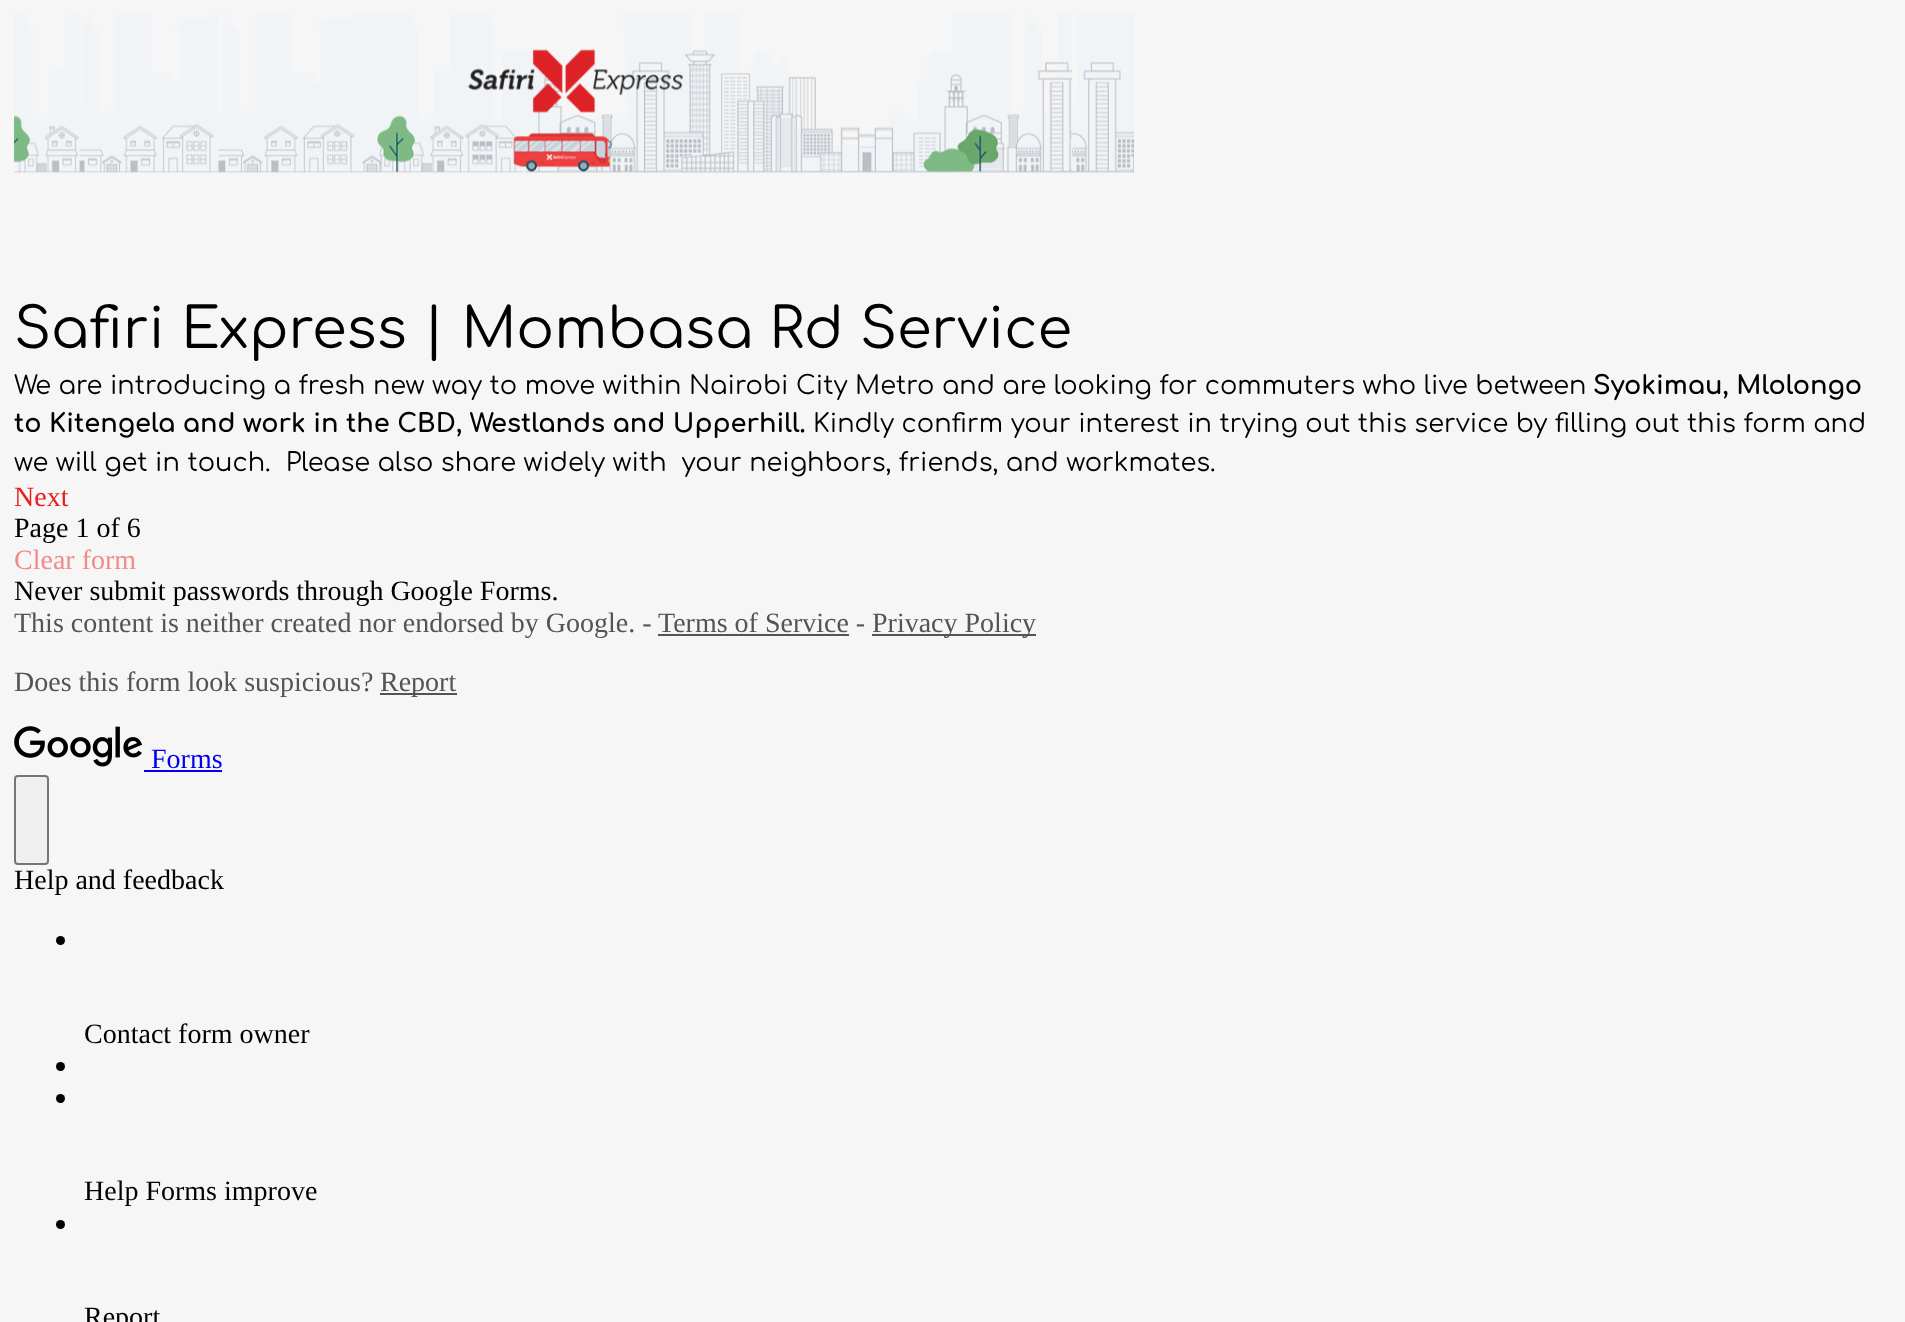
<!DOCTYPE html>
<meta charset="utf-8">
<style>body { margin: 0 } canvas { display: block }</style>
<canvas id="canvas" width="1905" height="1322"></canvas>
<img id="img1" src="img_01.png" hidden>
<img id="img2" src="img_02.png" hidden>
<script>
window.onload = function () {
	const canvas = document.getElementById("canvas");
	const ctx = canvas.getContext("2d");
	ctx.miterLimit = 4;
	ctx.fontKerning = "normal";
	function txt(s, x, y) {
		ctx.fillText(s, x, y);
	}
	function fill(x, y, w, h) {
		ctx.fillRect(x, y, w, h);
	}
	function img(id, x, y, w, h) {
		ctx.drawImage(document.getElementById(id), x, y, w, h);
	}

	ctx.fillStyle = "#F6F6F6";
	fill(0, 0, 1905, 1322);
	img("img1", 14, 14, 1120, 159);
	ctx.fillStyle = "#545454";
	fill(658, 634, 191, 2);
	fill(872, 634, 164, 2);
	fill(380, 693, 77, 2);
	img("img2", 14, 726, 128, 41);
	ctx.fillStyle = "#0000EE";
	fill(144, 770, 78, 2);
	ctx.fillStyle = "#EFEFEF";
	ctx.beginPath();
	ctx.roundRect(15, 776, 33, 88, 3);
	ctx.fill();
	ctx.strokeStyle = "#767676";
	ctx.lineWidth = 2;
	ctx.stroke();
	ctx.fillStyle = "#000000";
	ctx.beginPath();
	ctx.arc(60.5, 940.5, 4.5, 0, Math.PI * 2);
	ctx.fill();
	ctx.beginPath();
	ctx.arc(60.5, 1066.5, 4.5, 0, Math.PI * 2);
	ctx.fill();
	ctx.beginPath();
	ctx.arc(60.5, 1098.5, 4.5, 0, Math.PI * 2);
	ctx.fill();
	ctx.beginPath();
	ctx.arc(60.5, 1224.5, 4.5, 0, Math.PI * 2);
	ctx.fill();
	ctx.font = "56px Comfortaa";
	txt("Safiri Express | Mombasa Rd Service", 14, 348);
	ctx.font = "25.67px Comfortaa";
	txt("We are introducing a fresh new way to move within Nairobi City Metro and are looking for commuters who live between", 14, 394);
	ctx.font = "bold 25.67px Comfortaa";
	txt("Syokimau, Mlolongo", 1593, 394);
	txt("to Kitengela and work in the CBD, Westlands and Upperhill.", 14, 432);
	ctx.font = "25.67px Comfortaa";
	txt("Kindly confirm your interest in trying out this service by filling out this form and", 813, 432);
	txt("we will get in touch.  Please also share widely with  your neighbors, friends, and workmates.", 14, 471);
	ctx.font = "28px Liberation Serif";
	ctx.fillStyle = "#E8201C";
	txt("Next", 14, 506);
	ctx.fillStyle = "#000000";
	txt("Page 1 of 6", 14, 537);
	ctx.fillStyle = "#EF8B89";
	txt("Clear form", 14, 569);
	ctx.fillStyle = "#000000";
	txt("Never submit passwords through Google Forms.", 14, 600);
	ctx.fillStyle = "#545454";
	txt("This content is neither created nor endorsed by Google. -", 14, 632);
	txt("Terms of Service -", 658, 632);
	txt("Privacy Policy", 872, 632);
	txt("Does this form look suspicious?", 14, 691);
	txt("Report", 380, 691);
	ctx.fillStyle = "#0000EE";
	txt("Forms", 151, 768);
	ctx.fillStyle = "#000000";
	txt("Help and feedback", 14, 889);
	txt("Contact form owner", 84, 1043);
	txt("Help Forms improve", 84, 1200);
	txt("Report", 84, 1326);
};
</script>
